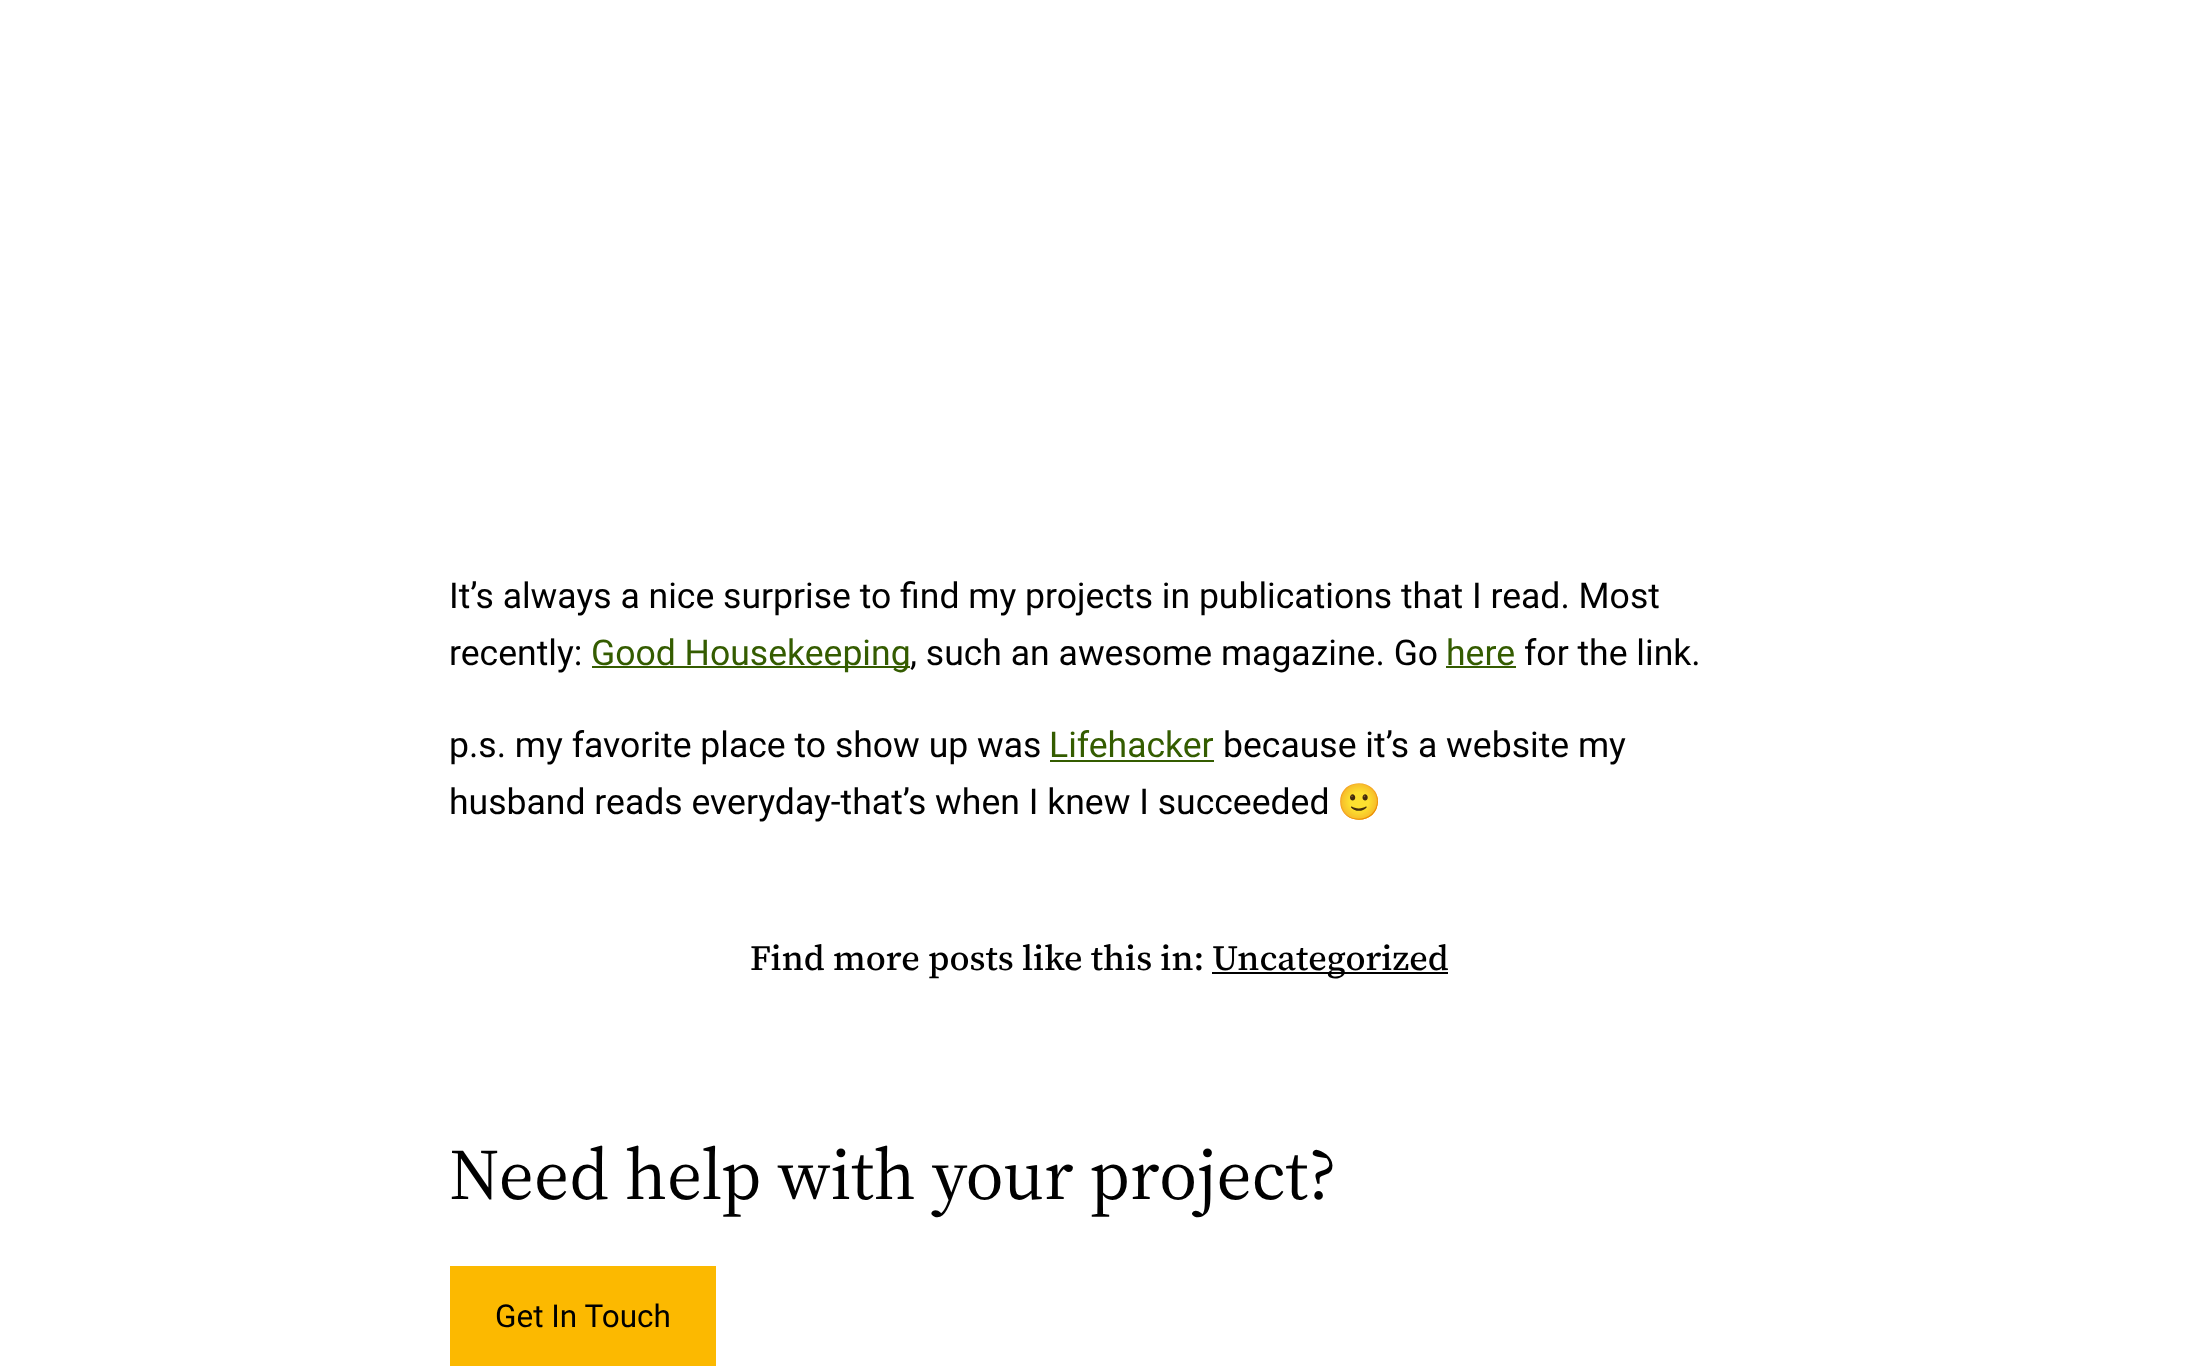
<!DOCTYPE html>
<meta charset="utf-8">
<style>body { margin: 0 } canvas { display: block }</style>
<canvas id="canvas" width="2197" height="1366"></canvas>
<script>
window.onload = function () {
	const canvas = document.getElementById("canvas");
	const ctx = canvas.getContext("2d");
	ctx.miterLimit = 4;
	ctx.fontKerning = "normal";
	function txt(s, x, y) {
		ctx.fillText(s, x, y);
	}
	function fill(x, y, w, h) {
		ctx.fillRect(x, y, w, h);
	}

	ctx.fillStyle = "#FFFFFF";
	fill(0, 0, 2197, 1366);
	ctx.fillStyle = "#345C00";
	fill(592, 666, 318, 2);
	fill(1446, 666, 70, 2);
	fill(1050, 760, 164, 2);
	ctx.fillStyle = "#000000";
	fill(1212, 972, 236, 2);
	ctx.fillStyle = "#FCB900";
	fill(450, 1266, 266, 100);
	ctx.font = "35.55px Roboto";
	ctx.fillStyle = "#000000";
	txt("It’s always a nice surprise to find my projects in publications that I read. Most", 449, 608);
	txt("recently:", 449, 665);
	ctx.fillStyle = "#345C00";
	txt("Good Housekeeping", 591, 665);
	ctx.fillStyle = "#000000";
	txt(", such an awesome magazine. Go", 910, 665);
	ctx.fillStyle = "#345C00";
	txt("here", 1446, 665);
	ctx.fillStyle = "#000000";
	txt("for the link.", 1524, 665);
	txt("p.s. my favorite place to show up was", 449, 757);
	ctx.fillStyle = "#345C00";
	txt("Lifehacker", 1049, 757);
	ctx.fillStyle = "#000000";
	txt("because it’s a website my", 1223, 757);
	txt("husband reads everyday-that’s when I knew I succeeded", 449, 814);
	ctx.font = "35.55px Noto Color Emoji";
	txt("🙂", 1337, 814);
	ctx.font = "500 35.55px 'Source Serif 4'";
	txt("Find more posts like this in:", 750, 970);
	txt("Uncategorized", 1212, 970);
	ctx.font = "72px 'Source Serif 4'";
	txt("Need help with your project?", 449, 1199);
	ctx.font = "31.5px Roboto";
	txt("Get In Touch", 495, 1327);
};
</script>
